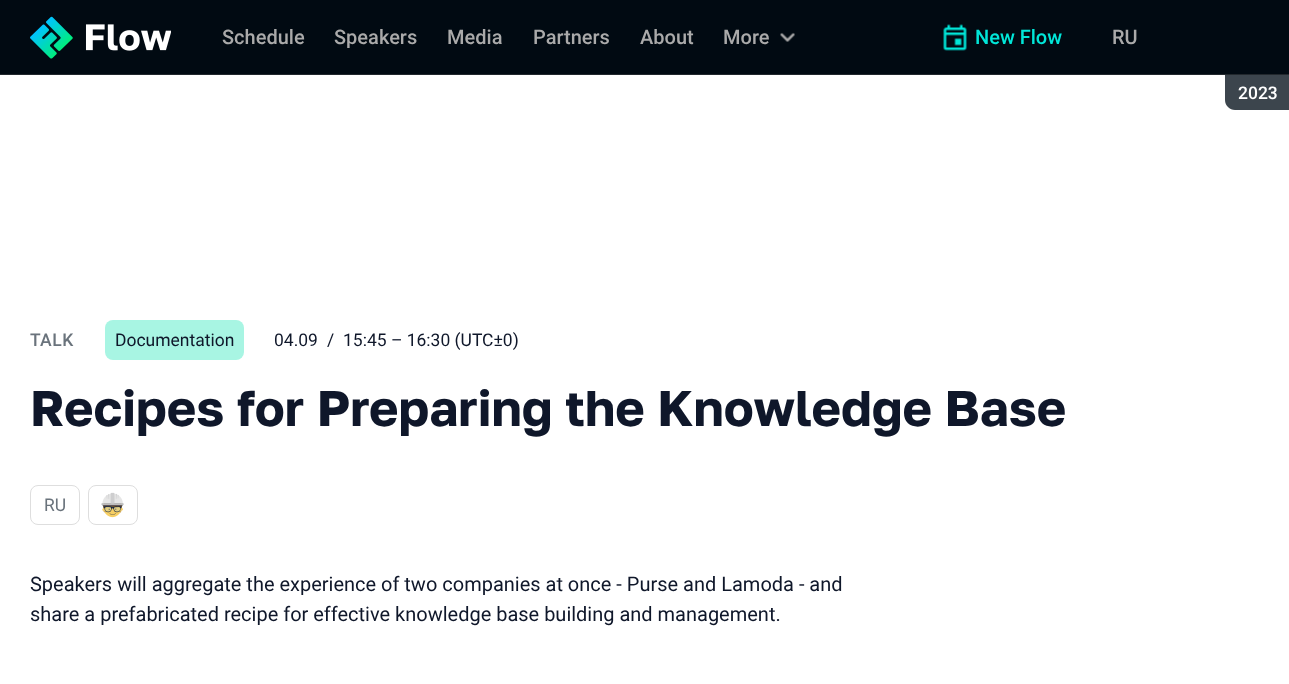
<!DOCTYPE html>
<meta charset="utf-8">
<style>body { margin: 0 } canvas { display: block }</style>
<canvas id="canvas" width="1289" height="684"></canvas>
<img id="img1" src="img_01.png" hidden>
<img id="img2" src="img_02.png" hidden>
<img id="img3" src="img_03.png" hidden>
<img id="img4" src="img_04.png" hidden>
<script>
window.onload = function () {
	const canvas = document.getElementById("canvas");
	const ctx = canvas.getContext("2d");
	ctx.miterLimit = 4;
	ctx.fontKerning = "normal";
	function txt(s, x, y) {
		ctx.fillText(s, x, y);
	}
	function fill(x, y, w, h) {
		ctx.fillRect(x, y, w, h);
	}
	function round(x, y, w, h, r) {
		ctx.beginPath();
		ctx.roundRect(x, y, w, h, r);
		ctx.fill();
	}
	function img(id, x, y, w, h) {
		ctx.drawImage(document.getElementById(id), x, y, w, h);
	}

	ctx.fillStyle = "#FFFFFF";
	fill(0, 0, 1289, 684);
	ctx.fillStyle = "#010A12";
	fill(0, 0, 1289, 74);
	img("img1", 30, 16, 141, 43);
	img("img2", 780, 32, 15, 10);
	img("img3", 943, 24, 24, 27);
	ctx.fillStyle = "#3C454D";
	ctx.beginPath();
	ctx.moveTo(1225, 75);
	ctx.lineTo(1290, 75);
	ctx.lineTo(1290, 110);
	ctx.lineTo(1235, 110);
	ctx.bezierCurveTo(1229.5, 110, 1225, 105.5, 1225, 100);
	ctx.closePath();
	ctx.fill();
	ctx.fillStyle = "#22282D";
	fill(0, 74, 1289, 1);
	ctx.fillStyle = "#A8F5E3";
	round(105, 320, 139, 40, 8);
	ctx.beginPath();
	ctx.roundRect(30.5, 485.5, 49, 39, 7.5);
	ctx.strokeStyle = "#DEDEDE";
	ctx.stroke();
	ctx.beginPath();
	ctx.roundRect(88.5, 485.5, 49, 39, 7.5);
	ctx.stroke();
	img("img4", 101, 492, 23, 26);
	ctx.font = "500 20px Roboto";
	ctx.fillStyle = "#AAAAAA";
	txt("Schedule", 222, 44);
	txt("Speakers", 334, 44);
	txt("Media", 447, 44);
	txt("Partners", 533, 44);
	txt("About", 640, 44);
	txt("More", 723, 44);
	ctx.fillStyle = "#01E6D8";
	txt("New Flow", 975, 44);
	ctx.font = "500 17.5px Roboto";
	ctx.fillStyle = "#FFFFFF";
	txt("2023", 1238, 99);
	ctx.font = "500 20px Roboto";
	ctx.fillStyle = "#AAAAAA";
	txt("RU", 1112, 44);
	ctx.letterSpacing = "0.5px";
	ctx.font = "500 17.5px Roboto";
	ctx.fillStyle = "#6A737C";
	txt("TALK", 30, 346);
	ctx.letterSpacing = "0px";
	ctx.font = "17.5px Roboto";
	ctx.fillStyle = "#0F172A";
	txt("Documentation", 115, 346);
	txt("04.09", 274, 346);
	txt("/", 327, 346);
	txt("15:45 – 16:30 (UTC±0)", 343, 346);
	ctx.font = "bold 50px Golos";
	txt("Recipes for Preparing the Knowledge Base", 30, 426);
	ctx.font = "17.5px Roboto";
	ctx.fillStyle = "#6A737C";
	txt("RU", 44, 511);
	ctx.font = "20px Roboto";
	ctx.fillStyle = "#0F172A";
	txt("Speakers will aggregate the experience of two companies at once - Purse and Lamoda - and", 30, 591);
	txt("share a prefabricated recipe for effective knowledge base building and management.", 30, 621);
};
</script>
